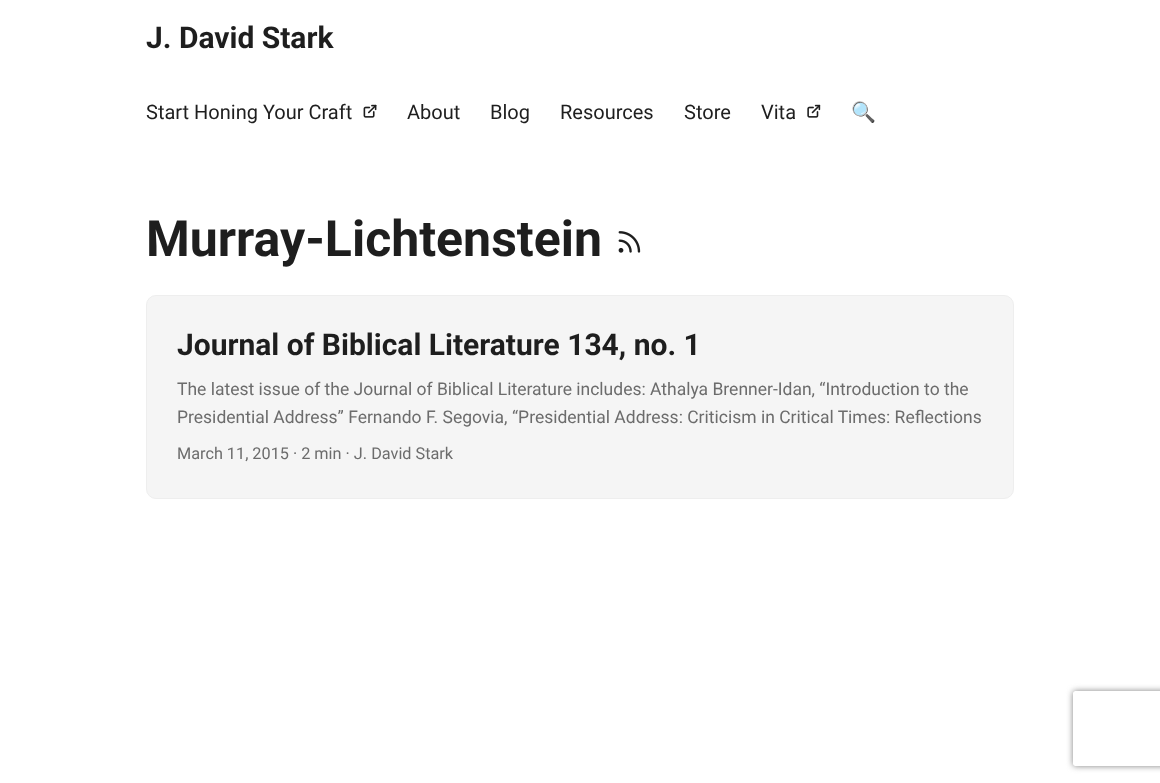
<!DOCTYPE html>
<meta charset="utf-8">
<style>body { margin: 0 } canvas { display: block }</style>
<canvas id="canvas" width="1160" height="783"></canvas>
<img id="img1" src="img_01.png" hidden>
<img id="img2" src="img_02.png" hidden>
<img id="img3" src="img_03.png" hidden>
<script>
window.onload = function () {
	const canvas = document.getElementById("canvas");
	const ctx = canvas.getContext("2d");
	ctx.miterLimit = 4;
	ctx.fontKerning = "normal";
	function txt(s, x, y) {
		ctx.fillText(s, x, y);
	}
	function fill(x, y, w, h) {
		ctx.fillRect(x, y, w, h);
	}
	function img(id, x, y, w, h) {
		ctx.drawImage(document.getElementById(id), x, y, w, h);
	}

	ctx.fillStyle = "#FFFFFF";
	fill(0, 0, 1160, 783);
	img("img1", 363, 104, 14, 14);
	img("img2", 807, 104, 14, 14);
	img("img3", 618, 231, 23, 22);
	ctx.fillStyle = "#F5F5F5";
	ctx.beginPath();
	ctx.roundRect(146.5, 295.5, 867, 203, 9.5);
	ctx.fill();
	ctx.strokeStyle = "#EEEEEE";
	ctx.stroke();
	ctx.save();
	ctx.beginPath();
	ctx.moveTo(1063, 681);
	ctx.lineTo(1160, 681);
	ctx.lineTo(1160, 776);
	ctx.lineTo(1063, 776);
	ctx.closePath();
	ctx.moveTo(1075.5, 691);
	ctx.lineTo(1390.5, 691);
	ctx.bezierCurveTo(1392, 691, 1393, 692, 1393, 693.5);
	ctx.lineTo(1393, 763.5);
	ctx.bezierCurveTo(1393, 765, 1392, 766, 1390.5, 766);
	ctx.lineTo(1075.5, 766);
	ctx.bezierCurveTo(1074, 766, 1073, 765, 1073, 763.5);
	ctx.lineTo(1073, 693.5);
	ctx.bezierCurveTo(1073, 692, 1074, 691, 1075.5, 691);
	ctx.closePath();
	ctx.clip("evenodd");
	ctx.fillStyle = "#808080";
	ctx.filter = "blur(3px)";
	ctx.beginPath();
	ctx.roundRect(1073, 691, 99, 75, 2.5);
	ctx.fill();
	ctx.filter = "none";
	ctx.restore();
	ctx.font = "bold 30px Roboto";
	ctx.fillStyle = "#1E1E1E";
	txt("J. David Stark", 146, 48);
	ctx.font = "20px Roboto";
	txt("Start Honing Your Craft", 146, 119);
	txt("About", 407, 119);
	txt("Blog", 490, 119);
	txt("Resources", 560, 119);
	txt("Store", 684, 119);
	txt("Vita", 761, 119);
	ctx.font = "20px Noto Color Emoji";
	txt("🔍", 851, 119);
	ctx.font = "bold 50px Roboto";
	txt("Murray-Lichtenstein", 146, 256);
	ctx.font = "bold 30px Roboto";
	txt("Journal of Biblical Literature 134, no. 1", 177, 355);
	ctx.font = "17.5px Roboto";
	ctx.fillStyle = "#6C6C6C";
	txt("The latest issue of the Journal of Biblical Literature includes: Athalya Brenner-Idan, “Introduction to the", 177, 395);
	txt("Presidential Address” Fernando F. Segovia, “Presidential Address: Criticism in Critical Times: Reflections", 177, 423);
	ctx.font = "16.25px Roboto";
	txt("March 11, 2015 · 2 min · J. David Stark", 177, 459);
};
</script>
